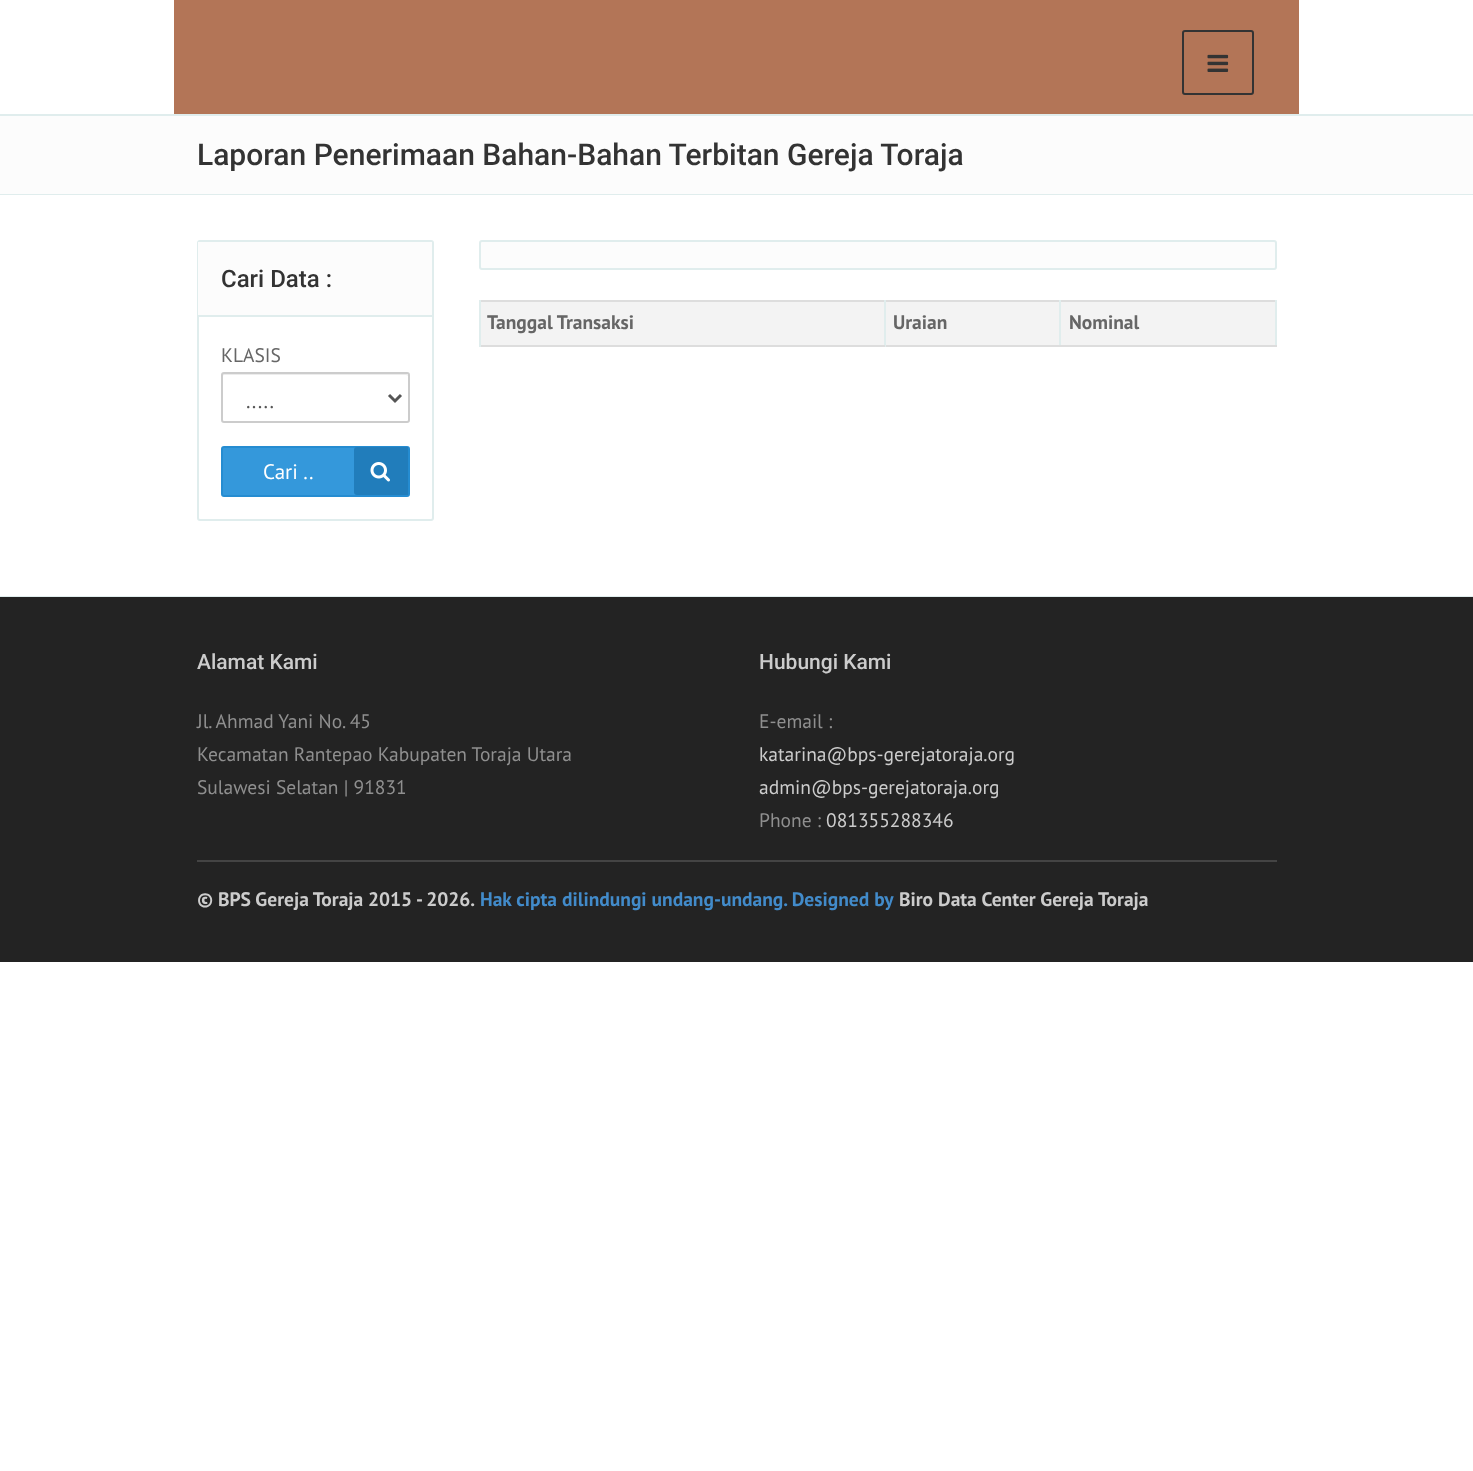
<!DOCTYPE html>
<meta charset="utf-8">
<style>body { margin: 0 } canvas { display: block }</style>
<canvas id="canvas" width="1473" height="1471"></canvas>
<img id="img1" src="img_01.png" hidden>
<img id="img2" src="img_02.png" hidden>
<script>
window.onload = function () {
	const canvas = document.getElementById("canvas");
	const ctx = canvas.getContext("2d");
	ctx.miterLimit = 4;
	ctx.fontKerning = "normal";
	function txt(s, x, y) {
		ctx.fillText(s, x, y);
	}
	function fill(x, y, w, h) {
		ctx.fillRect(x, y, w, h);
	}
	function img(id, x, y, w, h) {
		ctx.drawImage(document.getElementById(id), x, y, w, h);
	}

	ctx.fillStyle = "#FFFFFF";
	fill(0, 0, 1473, 1471);
	ctx.fillStyle = "#E0EDED";
	fill(0, 114, 1473, 2);
	ctx.fillStyle = "#B37557";
	fill(174, 0, 1125, 114);
	ctx.beginPath();
	ctx.roundRect(1183, 31, 70, 63, 2);
	ctx.strokeStyle = "#333333";
	ctx.lineWidth = 2;
	ctx.stroke();
	img("img1", 1207, 54, 22, 18);
	ctx.fillStyle = "#FCFCFC";
	fill(0, 116, 1473, 78);
	ctx.fillStyle = "#E0EDED";
	fill(0, 194, 1473, 1);
	fill(0, 596, 1473, 1);
	ctx.beginPath();
	ctx.roundRect(198, 241, 235, 279, 2);
	ctx.strokeStyle = "#E0EDED";
	ctx.stroke();
	ctx.fillStyle = "#FCFCFC";
	fill(198, 242, 234, 73);
	ctx.fillStyle = "#E0EDED";
	fill(198, 315, 234, 2);
	ctx.fillStyle = "#ECECEC";
	ctx.beginPath();
	ctx.moveTo(224, 375);
	ctx.lineTo(406, 375);
	ctx.bezierCurveTo(407, 375, 408, 376, 408, 376);
	ctx.bezierCurveTo(408, 375, 408, 374, 406, 374);
	ctx.lineTo(223, 374);
	ctx.lineTo(222, 376);
	ctx.closePath();
	ctx.fill();
	ctx.beginPath();
	ctx.roundRect(222, 373, 187, 49, 2);
	ctx.strokeStyle = "#CCCCCC";
	ctx.stroke();
	ctx.beginPath();
	ctx.moveTo(389, 395);
	ctx.lineTo(395, 401);
	ctx.lineTo(401, 395);
	ctx.strokeStyle = "#555555";
	ctx.lineWidth = 3;
	ctx.stroke();
	ctx.fillStyle = "#3498DB";
	ctx.beginPath();
	ctx.roundRect(222, 447, 187, 49, 2);
	ctx.fill();
	ctx.strokeStyle = "#258CD1";
	ctx.lineWidth = 2;
	ctx.stroke();
	ctx.fillStyle = "#217DBB";
	ctx.beginPath();
	ctx.roundRect(354, 447, 54, 48, [3, 0, 0, 3]);
	ctx.fill();
	img("img2", 370, 462, 20, 20);
	ctx.fillStyle = "#FCFCFC";
	ctx.beginPath();
	ctx.roundRect(480, 241, 796, 28, 2);
	ctx.fill();
	ctx.strokeStyle = "#E0EDED";
	ctx.stroke();
	ctx.fillStyle = "#DDDDDD";
	fill(479, 300, 798, 2);
	ctx.fillStyle = "#F3F3F3";
	fill(481, 302, 794, 43);
	ctx.fillStyle = "#E0EDED";
	fill(1275, 300, 2, 47);
	ctx.fillStyle = "#DDDDDD";
	fill(1059, 345, 218, 2);
	ctx.fillStyle = "#E0EDED";
	fill(1059, 300, 2, 47);
	ctx.fillStyle = "#DDDDDD";
	fill(884, 345, 177, 2);
	ctx.fillStyle = "#E0EDED";
	fill(884, 300, 2, 47);
	ctx.fillStyle = "#DDDDDD";
	fill(479, 345, 406, 2);
	ctx.fillStyle = "#E0EDED";
	fill(479, 300, 2, 47);
	ctx.fillStyle = "#232323";
	fill(0, 597, 1473, 365);
	ctx.fillStyle = "#444444";
	fill(197, 860, 1080, 2);
	ctx.font = "500 30px Roboto";
	ctx.fillStyle = "#333333";
	txt("Laporan Penerimaan Bahan-Bahan Terbitan Gereja Toraja", 197, 165);
	ctx.font = "500 24px Roboto";
	txt("Cari Data :", 221, 287);
	ctx.font = "19.5px PT Sans";
	ctx.fillStyle = "#666666";
	txt("KLASIS", 221, 362);
	ctx.font = "21px PT Sans";
	ctx.fillStyle = "#555555";
	txt(".....", 246, 408);
	ctx.fillStyle = "#FFFFFF";
	txt("Cari ..", 263, 479);
	ctx.font = "bold 19.5px PT Sans";
	ctx.fillStyle = "#666666";
	txt("Tanggal Transaksi", 487, 329);
	txt("Uraian", 893, 329);
	txt("Nominal", 1069, 329);
	ctx.font = "500 21px Roboto";
	ctx.fillStyle = "#CCCCCC";
	txt("Alamat Kami", 197, 669);
	ctx.font = "19.5px PT Sans";
	ctx.fillStyle = "#8F8F8F";
	txt("Jl. Ahmad Yani No. 45", 197, 728);
	txt("Kecamatan Rantepao Kabupaten Toraja Utara", 197, 761);
	txt("Sulawesi Selatan | 91831", 197, 794);
	ctx.font = "500 21px Roboto";
	ctx.fillStyle = "#CCCCCC";
	txt("Hubungi Kami", 759, 669);
	ctx.font = "19.5px PT Sans";
	ctx.fillStyle = "#8F8F8F";
	txt("E-email :", 759, 728);
	ctx.fillStyle = "#CCCCCC";
	txt("katarina@bps-gerejatoraja.org", 759, 761);
	txt("admin@bps-gerejatoraja.org", 759, 794);
	ctx.fillStyle = "#8F8F8F";
	txt("Phone :", 759, 827);
	ctx.fillStyle = "#CCCCCC";
	txt("081355288346", 826, 827);
	ctx.wordSpacing = "-0.25px";
	ctx.font = "bold 19.5px PT Sans";
	txt("© BPS Gereja Toraja 2015 - 2026.", 197, 906);
	ctx.wordSpacing = "0px";
	ctx.fillStyle = "#428BCA";
	txt("Hak cipta dilindungi undang-undang. Designed by", 480, 906);
	ctx.fillStyle = "#CCCCCC";
	txt("Biro Data Center Gereja Toraja", 899, 906);
};
</script>
